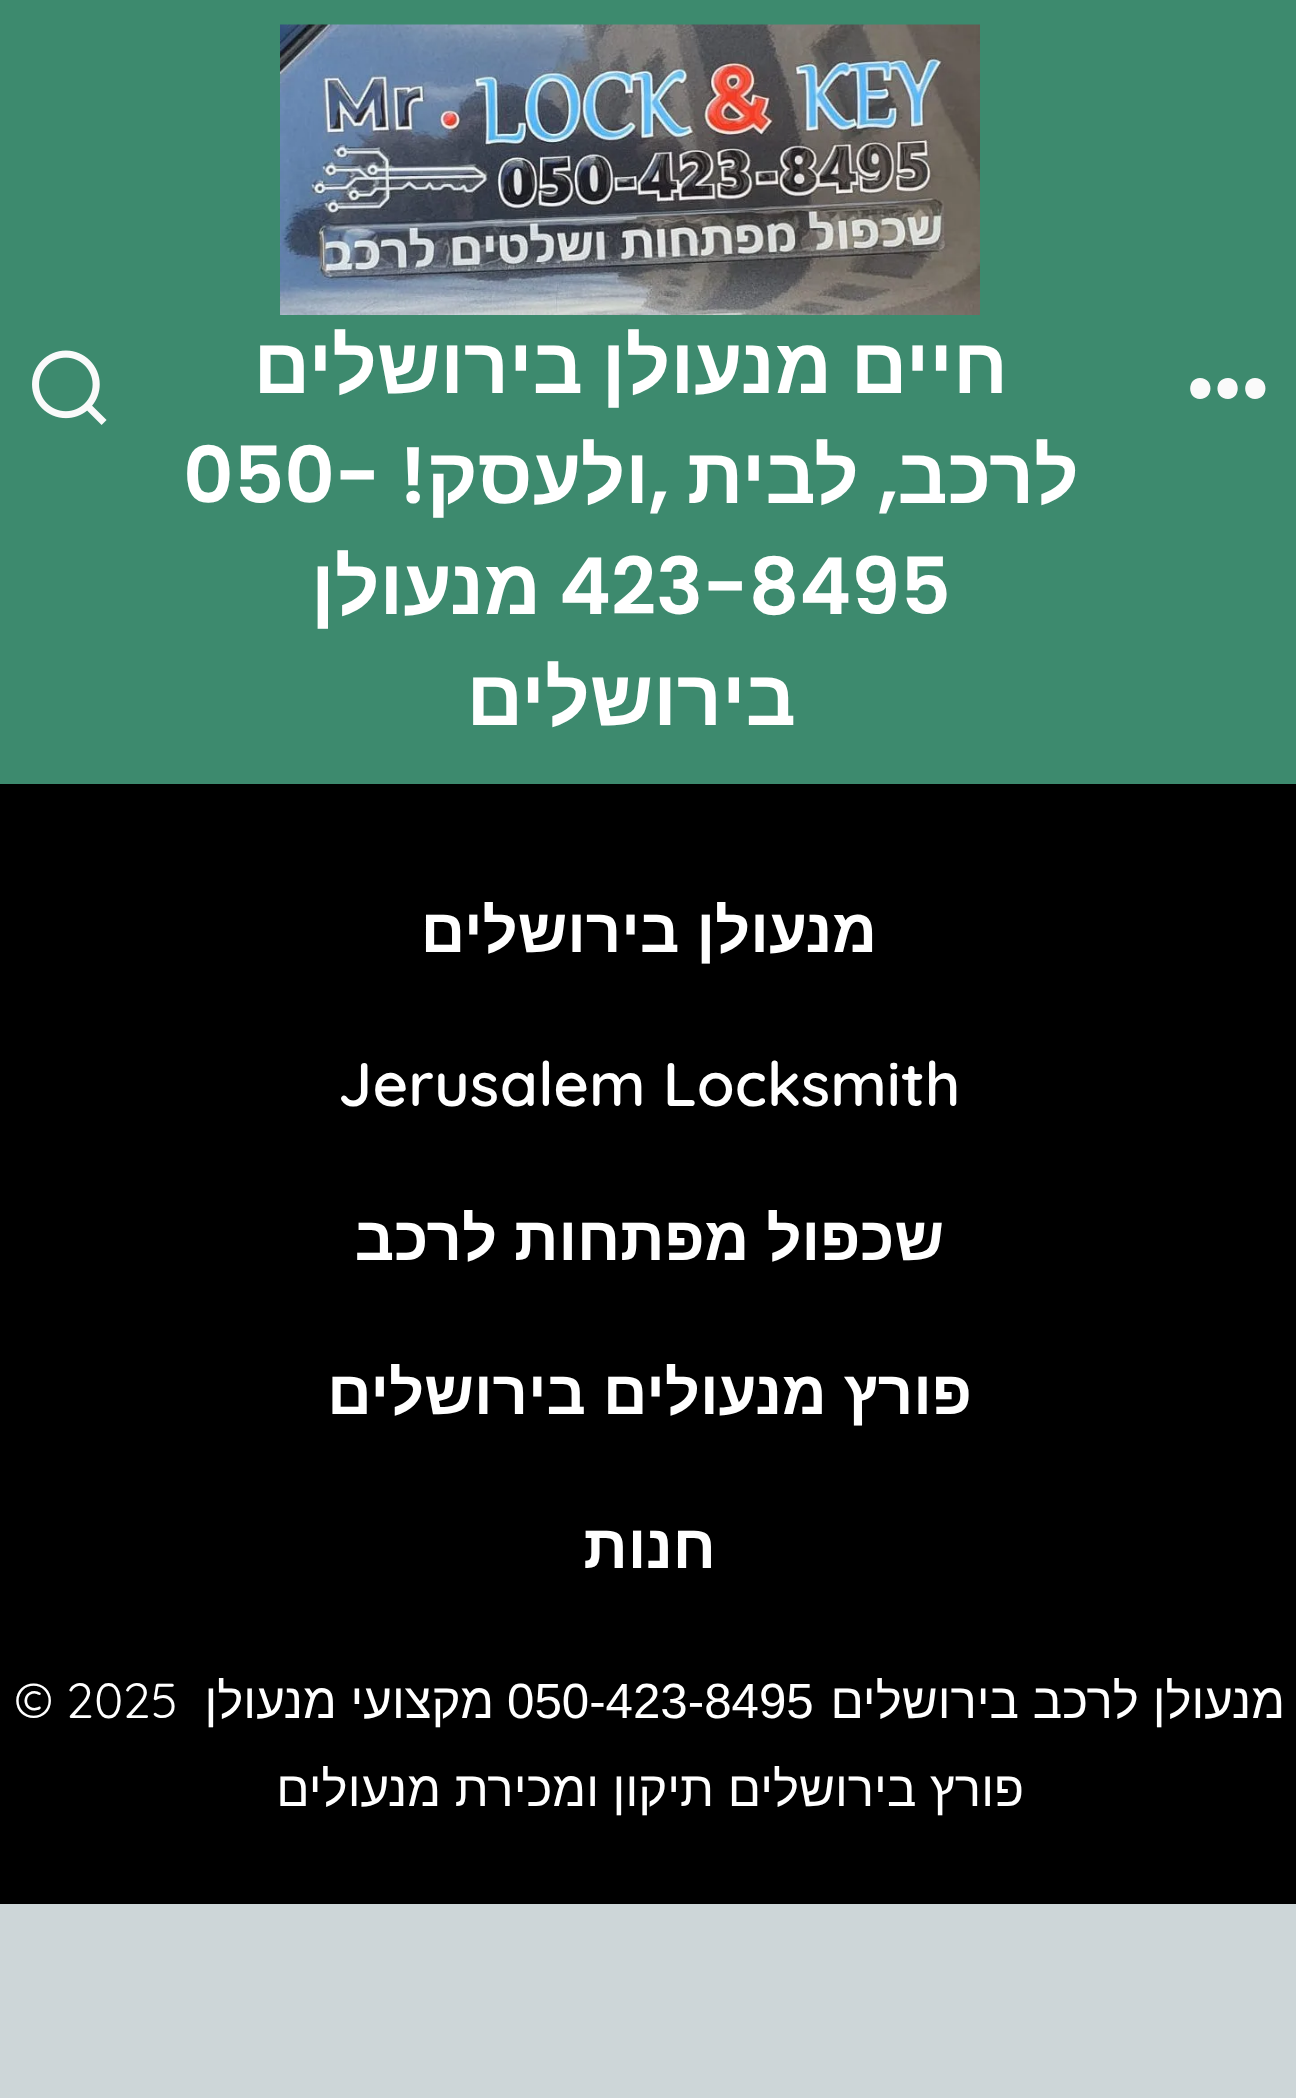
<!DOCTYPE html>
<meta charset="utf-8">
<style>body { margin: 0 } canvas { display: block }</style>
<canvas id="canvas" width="1296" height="2098"></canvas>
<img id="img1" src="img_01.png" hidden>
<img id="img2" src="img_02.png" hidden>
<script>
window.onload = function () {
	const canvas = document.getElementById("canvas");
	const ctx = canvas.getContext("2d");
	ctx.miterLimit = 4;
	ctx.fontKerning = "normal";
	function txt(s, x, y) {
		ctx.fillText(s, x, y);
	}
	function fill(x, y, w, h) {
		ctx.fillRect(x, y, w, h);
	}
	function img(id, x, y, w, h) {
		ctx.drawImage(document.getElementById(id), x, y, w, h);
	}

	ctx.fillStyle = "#CDD6D8";
	fill(0, 0, 1296, 2098);
	ctx.fillStyle = "#3D8A6E";
	fill(0, 0, 1296, 784);
	ctx.fillStyle = "#FAFAFA";
	ctx.beginPath();
	ctx.moveTo(1200, 399);
	ctx.bezierCurveTo(1187, 399, 1187, 378, 1200, 378);
	ctx.bezierCurveTo(1214, 378, 1214, 399, 1200, 399);
	ctx.closePath();
	ctx.moveTo(1228, 399);
	ctx.bezierCurveTo(1214, 399, 1214, 378, 1228, 378);
	ctx.bezierCurveTo(1241, 378, 1241, 399, 1228, 399);
	ctx.closePath();
	ctx.moveTo(1255, 399);
	ctx.bezierCurveTo(1242, 399, 1242, 378, 1255, 378);
	ctx.bezierCurveTo(1269, 378, 1269, 399, 1255, 399);
	ctx.closePath();
	ctx.fill();
	img("img1", 280, 24, 700, 291);
	img("img2", 32, 350, 75, 75);
	ctx.fillStyle = "#000000";
	fill(0, 784, 1296, 1120);
	ctx.wordSpacing = "-3px";
	ctx.direction = "rtl";
	ctx.font = "bold 78.5px Liberation Sans";
	ctx.fillStyle = "#FFFFFF";
	txt("חיים מנעולן בירושלים", 1008, 393);
	ctx.wordSpacing = "0px";
	txt("לרכב", 1079, 503);
	ctx.font = "600 78.5px Poppins";
	txt(",", 898, 503);
	ctx.font = "bold 78.5px Liberation Sans";
	txt("לבית", 859, 503);
	ctx.font = "600 78.5px Poppins";
	txt(",", 669, 503);
	ctx.font = "bold 78.5px Liberation Sans";
	txt("ולעסק", 649, 503);
	ctx.font = "600 78.5px Poppins";
	txt("!", 427, 503);
	ctx.direction = "ltr";
	txt("050-", 183, 503);
	txt("423-8495", 559, 614);
	ctx.direction = "rtl";
	ctx.font = "bold 78.5px Liberation Sans";
	txt("מנעולן", 541, 614);
	txt("בירושלים", 796, 725);
	ctx.font = "bold 61.6px Liberation Sans";
	txt("מנעולן בירושלים", 877, 952);
	ctx.direction = "ltr";
	ctx.font = "600 61.6px Quicksand";
	txt("Jerusalem Locksmith", 338, 1106);
	ctx.direction = "rtl";
	ctx.font = "bold 61.6px Liberation Sans";
	txt("שכפול מפתחות לרכב", 944, 1260);
	txt("פורץ מנעולים בירושלים", 972, 1414);
	txt("חנות", 716, 1568);
	ctx.font = "49.25px Liberation Sans";
	txt("מנעולן לרכב בירושלים", 1285, 1718);
	ctx.direction = "ltr";
	txt("050-423-8495", 507, 1718);
	ctx.direction = "rtl";
	txt("מקצועי מנעולן", 494, 1718);
	ctx.direction = "ltr";
	ctx.font = "49.25px Quicksand";
	txt("© 2025", 14, 1718);
	ctx.direction = "rtl";
	ctx.font = "49.25px Liberation Sans";
	txt("פורץ בירושלים תיקון ומכירת מנעולים", 1024, 1806);
};
</script>
